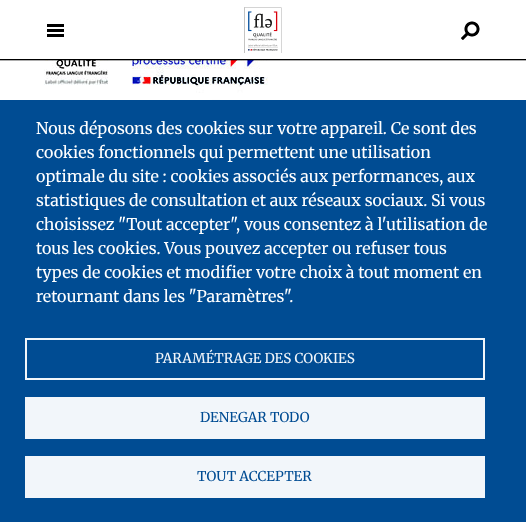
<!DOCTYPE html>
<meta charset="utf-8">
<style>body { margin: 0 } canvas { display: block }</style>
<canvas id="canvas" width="526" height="522"></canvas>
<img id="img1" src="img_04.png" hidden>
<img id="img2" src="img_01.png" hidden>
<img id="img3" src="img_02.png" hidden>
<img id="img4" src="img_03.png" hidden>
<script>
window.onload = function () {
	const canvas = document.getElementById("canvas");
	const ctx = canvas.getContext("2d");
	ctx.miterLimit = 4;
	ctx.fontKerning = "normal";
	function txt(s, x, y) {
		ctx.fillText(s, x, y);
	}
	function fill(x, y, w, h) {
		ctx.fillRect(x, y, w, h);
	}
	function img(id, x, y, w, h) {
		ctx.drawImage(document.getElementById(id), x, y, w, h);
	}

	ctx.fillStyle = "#FFFFFF";
	fill(0, 0, 526, 522);
	img("img1", 44, 60, 224, 40);
	ctx.fillStyle = "rgba(0, 0, 0, 0.32)";
	fill(0, 60, 526, 1);
	ctx.fillStyle = "#000000";
	fill(0, 59, 526, 1);
	img("img2", 47, 24, 17, 13);
	img("img3", 244, 7, 38, 46);
	img("img4", 461, 21, 19, 19);
	ctx.fillStyle = "#004C93";
	fill(0, 100, 526, 422);
	ctx.strokeStyle = "#F2F6FA";
	ctx.lineWidth = 2;
	ctx.strokeRect(26, 339, 458, 40);
	ctx.fillStyle = "#F2F6FA";
	fill(25, 397, 460, 42);
	fill(25, 456, 460, 42);
	ctx.font = "16px Merriweather";
	ctx.fillStyle = "#FFFFFF";
	txt("Nous déposons des cookies sur votre appareil. Ce sont des", 36, 134);
	txt("cookies fonctionnels qui permettent une utilisation", 36, 158);
	txt("optimale du site : cookies associés aux performances, aux", 36, 182);
	txt("statistiques de consultation et aux réseaux sociaux. Si vous", 36, 206);
	txt("choisissez \"Tout accepter\", vous consentez à l'utilisation de", 36, 230);
	txt("tous les cookies. Vous pouvez accepter ou refuser tous", 36, 254);
	txt("types de cookies et modifier votre choix à tout moment en", 36, 278);
	txt("retournant dans les \"Paramètres\".", 36, 302);
	ctx.font = "13.6px Merriweather";
	ctx.fillStyle = "#F2F6FA";
	txt("PARAMÉTRAGE DES COOKIES", 155, 363);
	ctx.fillStyle = "#004C93";
	txt("DENEGAR TODO", 200, 422);
	txt("TOUT ACCEPTER", 197, 481);
};
</script>
